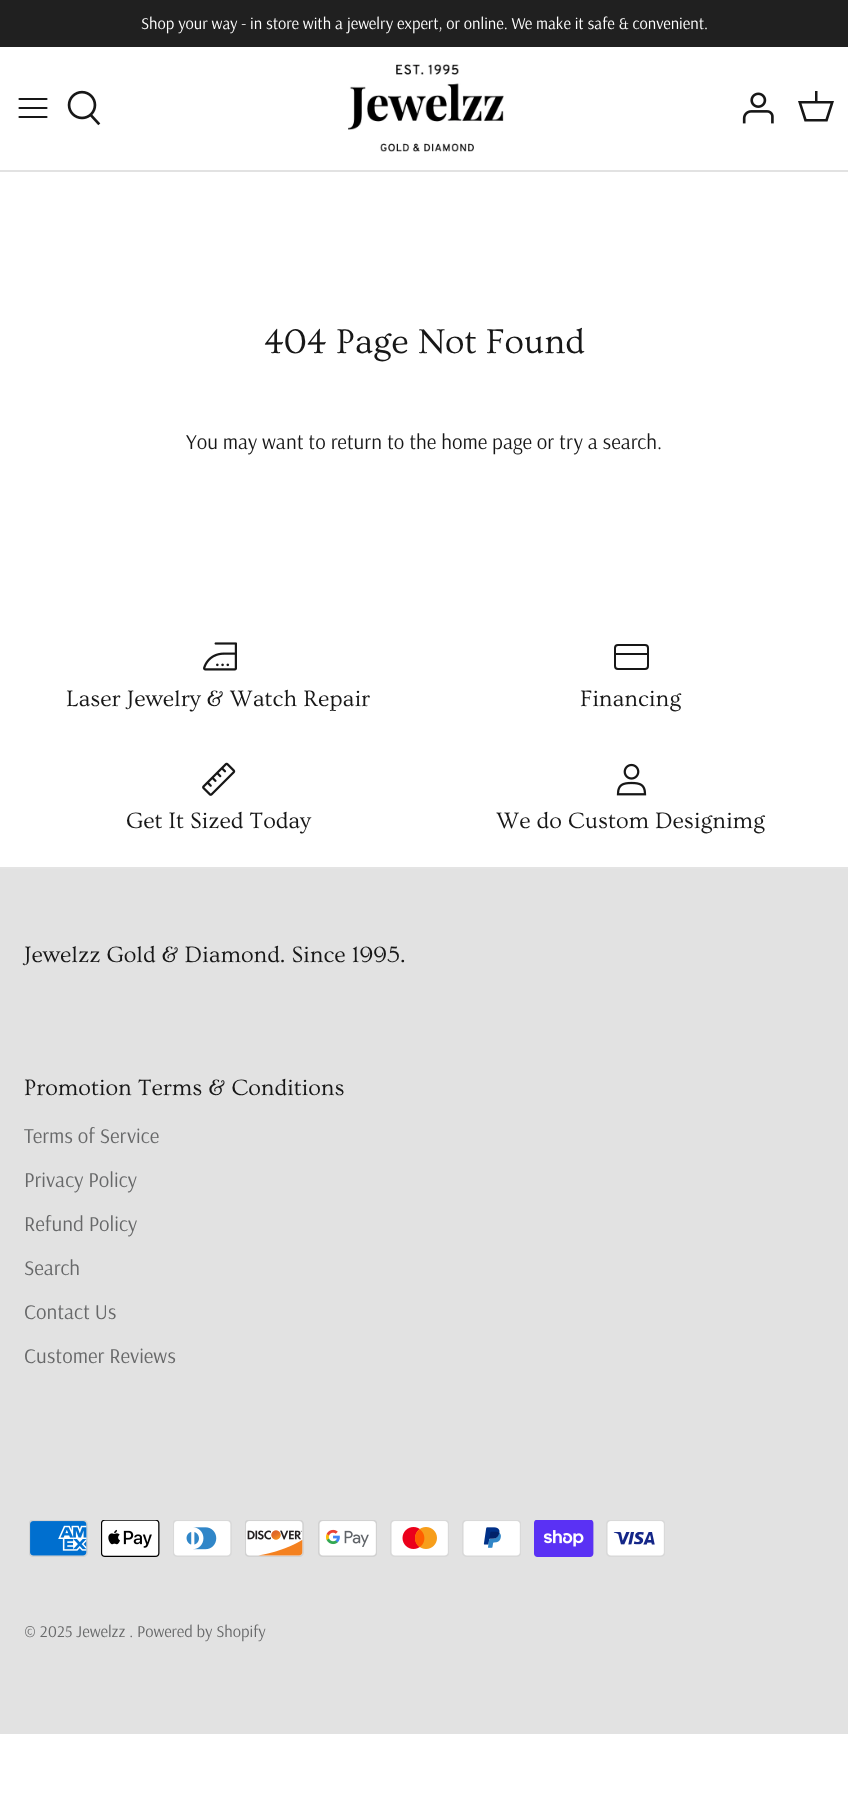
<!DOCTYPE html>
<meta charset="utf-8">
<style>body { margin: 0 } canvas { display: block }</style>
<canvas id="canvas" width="848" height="1813"></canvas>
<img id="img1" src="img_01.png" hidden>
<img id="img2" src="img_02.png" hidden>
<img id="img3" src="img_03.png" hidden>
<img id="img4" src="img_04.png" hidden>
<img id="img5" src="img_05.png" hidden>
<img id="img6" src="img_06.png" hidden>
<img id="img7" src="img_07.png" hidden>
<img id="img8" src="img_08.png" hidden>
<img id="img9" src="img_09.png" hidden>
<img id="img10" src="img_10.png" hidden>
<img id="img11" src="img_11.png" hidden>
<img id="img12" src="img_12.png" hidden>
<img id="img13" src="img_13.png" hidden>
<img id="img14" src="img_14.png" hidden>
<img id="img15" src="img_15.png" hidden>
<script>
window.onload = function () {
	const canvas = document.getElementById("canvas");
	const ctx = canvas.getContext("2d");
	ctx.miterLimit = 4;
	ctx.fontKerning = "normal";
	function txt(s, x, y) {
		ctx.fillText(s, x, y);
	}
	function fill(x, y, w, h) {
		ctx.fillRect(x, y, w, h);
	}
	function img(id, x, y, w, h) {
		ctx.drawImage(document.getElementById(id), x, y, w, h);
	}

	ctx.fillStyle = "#FFFFFF";
	fill(0, 0, 848, 1813);
	ctx.fillStyle = "#202020";
	fill(0, 0, 848, 47);
	ctx.fillStyle = "#E2E2E2";
	fill(0, 170, 848, 2);
	ctx.beginPath();
	ctx.moveTo(19.5, 108);
	ctx.lineTo(46.5, 108);
	ctx.moveTo(19.5, 99);
	ctx.lineTo(46.5, 99);
	ctx.moveTo(19.5, 117);
	ctx.lineTo(46.5, 117);
	ctx.strokeStyle = "#171717";
	ctx.lineWidth = 2.2;
	ctx.lineCap = "round";
	ctx.lineJoin = "round";
	ctx.stroke();
	img("img1", 67, 90, 34, 36);
	img("img2", 348, 64, 156, 88);
	img("img3", 742, 92, 32, 32);
	ctx.fillStyle = "#171717";
	ctx.beginPath();
	ctx.moveTo(815, 101);
	ctx.lineTo(815, 91);
	ctx.lineTo(817.5, 91);
	ctx.lineTo(817.5, 101);
	ctx.lineTo(834, 101);
	ctx.lineTo(827.5, 121.5);
	ctx.lineTo(804.5, 121.5);
	ctx.lineTo(798, 101);
	ctx.closePath();
	ctx.moveTo(801.5, 103.5);
	ctx.lineTo(806.5, 119);
	ctx.lineTo(825.5, 119);
	ctx.lineTo(830.5, 103.5);
	ctx.closePath();
	ctx.fill();
	ctx.fillStyle = "#E2E2E2";
	fill(0, 869, 848, 865);
	img("img4", 203, 642, 34, 29);
	ctx.beginPath();
	ctx.roundRect(615, 645, 33, 24, 3);
	ctx.lineWidth = 2;
	ctx.lineJoin = "miter";
	ctx.stroke();
	ctx.fillStyle = "#171717";
	fill(616, 653, 32, 2);
	img("img5", 202, 762, 34, 34);
	img("img6", 616, 763, 31, 33);
	ctx.fillStyle = "#E4E4E4";
	fill(0, 867, 848, 2);
	img("img7", 29, 1520, 59, 37);
	img("img8", 101, 1520, 59, 37);
	img("img9", 173, 1520, 59, 37);
	img("img10", 245, 1520, 59, 37);
	img("img11", 318, 1520, 59, 37);
	img("img12", 390, 1520, 59, 37);
	img("img13", 462, 1520, 59, 37);
	img("img14", 534, 1520, 60, 37);
	img("img15", 606, 1520, 59, 37);
	ctx.font = "16.5px Arsenal";
	ctx.fillStyle = "#FFFFFF";
	txt("Shop your way - in store with a jewelry expert, or online. We make it safe & convenient.", 141, 29);
	ctx.font = "36px Ovo";
	ctx.fillStyle = "#171717";
	txt("404 Page Not Found", 264, 353);
	ctx.font = "21px Arsenal";
	txt("You may want to return to the home page or try a search.", 186, 449);
	ctx.font = "23.4px Ovo";
	txt("Laser Jewelry & Watch Repair", 66, 706);
	txt("Financing", 580, 706);
	txt("Get It Sized Today", 126, 828);
	txt("We do Custom Designimg", 496, 828);
	txt("Jewelzz Gold & Diamond. Since 1995.", 24, 962);
	txt("Promotion Terms & Conditions", 24, 1095);
	ctx.font = "21px Arsenal";
	ctx.fillStyle = "#676869";
	txt("Terms of Service", 24, 1143);
	txt("Privacy Policy", 24, 1187);
	txt("Refund Policy", 24, 1231);
	txt("Search", 24, 1275);
	txt("Contact Us", 24, 1319);
	txt("Customer Reviews", 24, 1363);
	ctx.font = "16.5px Arsenal";
	txt("© 2025 Jewelzz . Powered by Shopify", 24, 1637);
};
</script>
